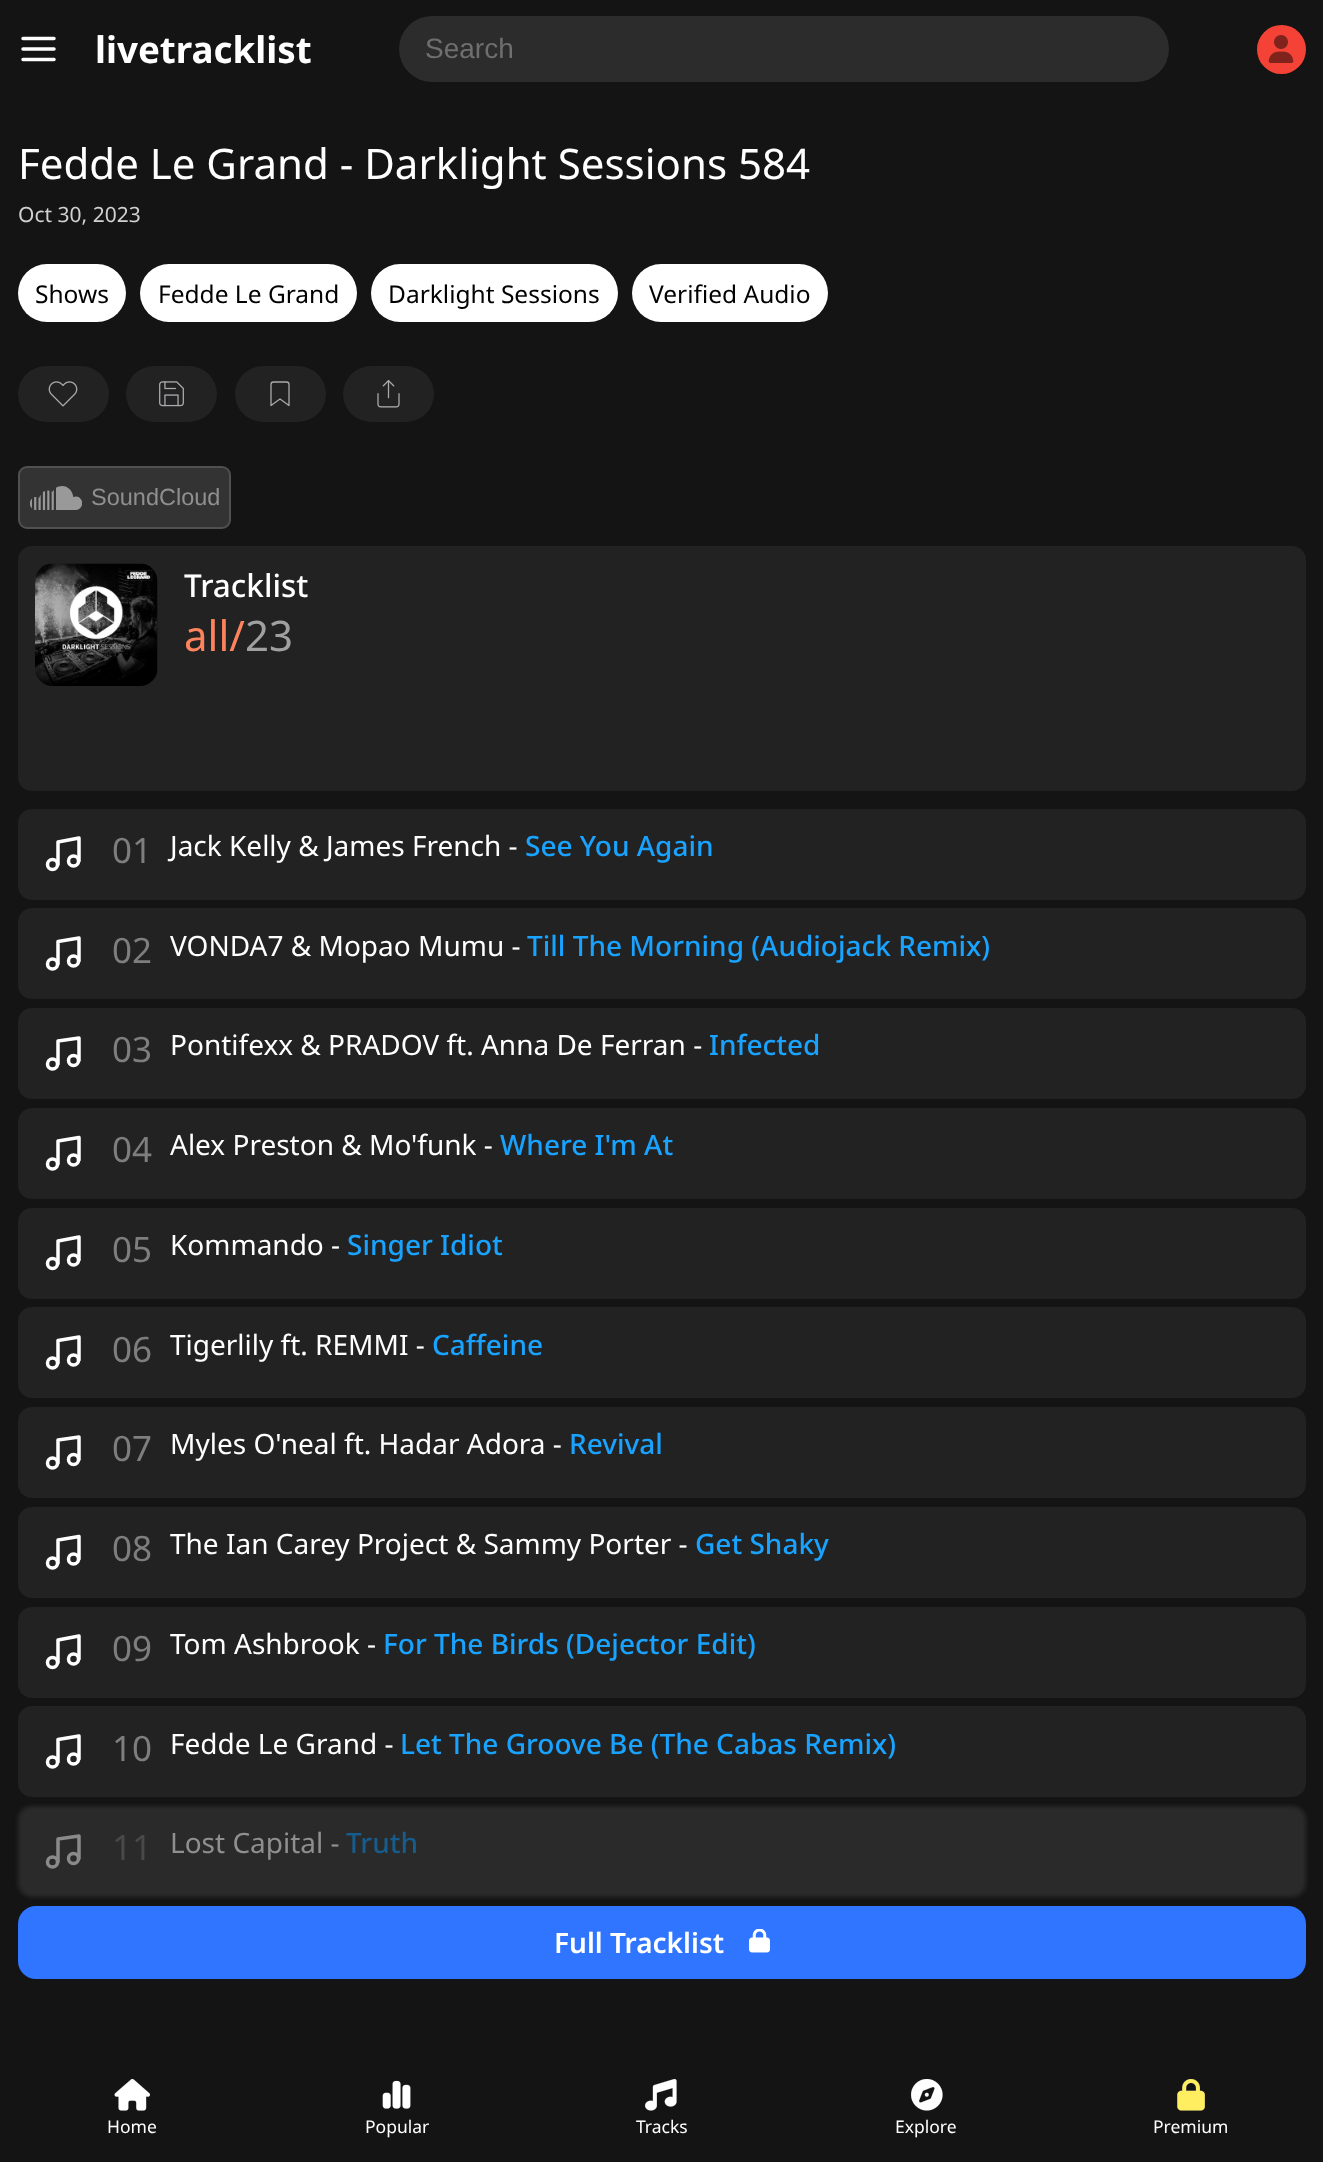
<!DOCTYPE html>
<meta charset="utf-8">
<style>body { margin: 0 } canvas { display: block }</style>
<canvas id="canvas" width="1323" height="2162"></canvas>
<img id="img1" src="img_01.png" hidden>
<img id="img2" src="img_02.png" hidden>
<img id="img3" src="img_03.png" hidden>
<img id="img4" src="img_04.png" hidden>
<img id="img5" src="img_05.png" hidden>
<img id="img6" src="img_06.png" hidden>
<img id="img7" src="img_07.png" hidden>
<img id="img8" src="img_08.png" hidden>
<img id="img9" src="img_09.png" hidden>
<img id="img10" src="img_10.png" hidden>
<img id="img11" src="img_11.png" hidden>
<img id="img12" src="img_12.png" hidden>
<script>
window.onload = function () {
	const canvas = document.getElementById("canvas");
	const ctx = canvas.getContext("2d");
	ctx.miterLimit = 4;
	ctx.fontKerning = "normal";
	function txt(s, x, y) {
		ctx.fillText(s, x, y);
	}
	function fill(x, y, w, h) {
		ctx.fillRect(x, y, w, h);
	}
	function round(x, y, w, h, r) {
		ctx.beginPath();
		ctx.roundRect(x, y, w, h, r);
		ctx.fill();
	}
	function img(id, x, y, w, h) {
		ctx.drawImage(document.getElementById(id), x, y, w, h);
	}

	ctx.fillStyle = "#141414";
	fill(0, 0, 1323, 2162);
	ctx.beginPath();
	ctx.moveTo(23, 49);
	ctx.lineTo(54, 49);
	ctx.moveTo(23, 38.5);
	ctx.lineTo(54, 38.5);
	ctx.moveTo(23, 59.5);
	ctx.lineTo(54, 59.5);
	ctx.strokeStyle = "#FFFFFF";
	ctx.lineWidth = 3.5;
	ctx.lineCap = "round";
	ctx.lineJoin = "round";
	ctx.stroke();
	ctx.fillStyle = "#2C2C2C";
	round(399, 16, 770, 66, 33);
	ctx.fillStyle = "#F44336";
	ctx.beginPath();
	ctx.arc(1281.5, 49.5, 24.5, 0, Math.PI * 2);
	ctx.fill();
	img("img1", 1268, 35, 26, 28);
	ctx.fillStyle = "#FFFFFF";
	round(18, 264, 108, 58, 29);
	round(140, 264, 217, 58, 29);
	round(371, 264, 247, 58, 29);
	round(632, 264, 196, 58, 29);
	ctx.fillStyle = "#222222";
	round(18, 366, 91, 56, 28);
	img("img2", 48, 381, 30, 26);
	round(126, 366, 91, 56, 28);
	img("img3", 159, 381, 25, 26);
	round(235, 366, 91, 56, 28);
	ctx.beginPath();
	ctx.moveTo(289, 405.5);
	ctx.lineTo(280, 399);
	ctx.lineTo(271, 405.5);
	ctx.lineTo(271, 384.5);
	ctx.bezierCurveTo(271, 383, 272, 382, 273.5, 382);
	ctx.lineTo(286.5, 382);
	ctx.bezierCurveTo(288, 382, 289, 383, 289, 384.5);
	ctx.closePath();
	ctx.strokeStyle = "#AAAAAE";
	ctx.lineWidth = 1.3;
	ctx.stroke();
	round(343, 366, 91, 56, 28);
	img("img4", 377, 380, 23, 28);
	ctx.fillStyle = "#333333";
	ctx.beginPath();
	ctx.roundRect(19, 467, 211, 61, 8);
	ctx.fill();
	ctx.strokeStyle = "#505050";
	ctx.lineWidth = 2;
	ctx.lineJoin = "miter";
	ctx.stroke();
	img("img5", 30, 486, 52, 24);
	ctx.fillStyle = "#222222";
	round(18, 546, 1288, 245, 14);
	img("img6", 35, 563, 123, 123);
	round(18, 809, 1288, 91, 14);
	ctx.beginPath();
	ctx.moveTo(58, 864.5);
	ctx.lineTo(58, 842);
	ctx.lineTo(79, 838);
	ctx.lineTo(79, 861);
	ctx.strokeStyle = "#FFFFFF";
	ctx.lineWidth = 3.5;
	ctx.lineJoin = "round";
	ctx.stroke();
	ctx.beginPath();
	ctx.arc(52.5, 864.5, 5, 0, Math.PI * 2);
	ctx.stroke();
	ctx.beginPath();
	ctx.arc(73.5, 861, 5, 0, Math.PI * 2);
	ctx.stroke();
	round(18, 908, 1288, 91, 14);
	ctx.beginPath();
	ctx.moveTo(58, 964);
	ctx.lineTo(58, 941.5);
	ctx.lineTo(79, 938);
	ctx.lineTo(79, 961);
	ctx.stroke();
	ctx.beginPath();
	ctx.arc(52.5, 964, 5, 0, Math.PI * 2);
	ctx.stroke();
	ctx.beginPath();
	ctx.arc(73.5, 961, 5, 0, Math.PI * 2);
	ctx.stroke();
	round(18, 1008, 1288, 91, 14);
	ctx.beginPath();
	ctx.moveTo(58, 1064);
	ctx.lineTo(58, 1041);
	ctx.lineTo(79, 1038);
	ctx.lineTo(79, 1060.5);
	ctx.stroke();
	ctx.beginPath();
	ctx.arc(52.5, 1064, 5, 0, Math.PI * 2);
	ctx.stroke();
	ctx.beginPath();
	ctx.arc(73.5, 1060.5, 5, 0, Math.PI * 2);
	ctx.stroke();
	round(18, 1108, 1288, 91, 14);
	ctx.beginPath();
	ctx.moveTo(58, 1164);
	ctx.lineTo(58, 1141);
	ctx.lineTo(79, 1137.5);
	ctx.lineTo(79, 1160);
	ctx.stroke();
	ctx.beginPath();
	ctx.arc(52.5, 1164, 5, 0, Math.PI * 2);
	ctx.stroke();
	ctx.beginPath();
	ctx.arc(73.5, 1160, 5, 0, Math.PI * 2);
	ctx.stroke();
	round(18, 1208, 1288, 91, 14);
	ctx.beginPath();
	ctx.moveTo(58, 1263.5);
	ctx.lineTo(58, 1241);
	ctx.lineTo(79, 1237);
	ctx.lineTo(79, 1260);
	ctx.stroke();
	ctx.beginPath();
	ctx.arc(52.5, 1263.5, 5, 0, Math.PI * 2);
	ctx.stroke();
	ctx.beginPath();
	ctx.arc(73.5, 1260, 5, 0, Math.PI * 2);
	ctx.stroke();
	round(18, 1307, 1288, 91, 14);
	ctx.beginPath();
	ctx.moveTo(58, 1363);
	ctx.lineTo(58, 1340.5);
	ctx.lineTo(79, 1337);
	ctx.lineTo(79, 1360);
	ctx.stroke();
	ctx.beginPath();
	ctx.arc(52.5, 1363, 5, 0, Math.PI * 2);
	ctx.stroke();
	ctx.beginPath();
	ctx.arc(73.5, 1360, 5, 0, Math.PI * 2);
	ctx.stroke();
	round(18, 1407, 1288, 91, 14);
	ctx.beginPath();
	ctx.moveTo(58, 1463);
	ctx.lineTo(58, 1440);
	ctx.lineTo(79, 1437);
	ctx.lineTo(79, 1459.5);
	ctx.stroke();
	ctx.beginPath();
	ctx.arc(52.5, 1463, 5, 0, Math.PI * 2);
	ctx.stroke();
	ctx.beginPath();
	ctx.arc(73.5, 1459.5, 5, 0, Math.PI * 2);
	ctx.stroke();
	round(18, 1507, 1288, 91, 14);
	ctx.beginPath();
	ctx.moveTo(58, 1563);
	ctx.lineTo(58, 1540);
	ctx.lineTo(79, 1536.5);
	ctx.lineTo(79, 1559);
	ctx.stroke();
	ctx.beginPath();
	ctx.arc(52.5, 1563, 5, 0, Math.PI * 2);
	ctx.stroke();
	ctx.beginPath();
	ctx.arc(73.5, 1559, 5, 0, Math.PI * 2);
	ctx.stroke();
	round(18, 1607, 1288, 91, 14);
	ctx.beginPath();
	ctx.moveTo(58, 1662.5);
	ctx.lineTo(58, 1640);
	ctx.lineTo(79, 1636);
	ctx.lineTo(79, 1659);
	ctx.stroke();
	ctx.beginPath();
	ctx.arc(52.5, 1662.5, 5, 0, Math.PI * 2);
	ctx.stroke();
	ctx.beginPath();
	ctx.arc(73.5, 1659, 5, 0, Math.PI * 2);
	ctx.stroke();
	round(18, 1706, 1288, 91, 14);
	ctx.beginPath();
	ctx.moveTo(58, 1762);
	ctx.lineTo(58, 1739.5);
	ctx.lineTo(79, 1736);
	ctx.lineTo(79, 1759);
	ctx.stroke();
	ctx.beginPath();
	ctx.arc(52.5, 1762, 5, 0, Math.PI * 2);
	ctx.stroke();
	ctx.beginPath();
	ctx.arc(73.5, 1759, 5, 0, Math.PI * 2);
	ctx.stroke();
	ctx.fillStyle = "rgba(138, 138, 138, 0.19)";
	ctx.filter = "blur(2px)";
	ctx.beginPath();
	ctx.roundRect(18, 1806, 1288, 91, 14);
	ctx.fill();
	ctx.filter = "none";
	ctx.beginPath();
	ctx.moveTo(58, 1862);
	ctx.lineTo(58, 1839);
	ctx.lineTo(79, 1836);
	ctx.lineTo(79, 1858.5);
	ctx.strokeStyle = "#8A8A8A";
	ctx.stroke();
	ctx.beginPath();
	ctx.arc(52.5, 1862, 5, 0, Math.PI * 2);
	ctx.stroke();
	ctx.beginPath();
	ctx.arc(73.5, 1858.5, 5, 0, Math.PI * 2);
	ctx.stroke();
	ctx.fillStyle = "#2F75FF";
	round(18, 1906, 1288, 73, 18);
	img("img7", 749, 1929, 21, 24);
	img("img8", 114, 2079, 36, 32);
	img("img9", 382, 2080, 29, 29);
	img("img10", 645, 2079, 32, 32);
	img("img11", 911, 2079, 32, 32);
	img("img12", 1177, 2079, 28, 32);
	ctx.font = "bold 36.75px Noto Sans";
	ctx.fillStyle = "#FFFFFF";
	txt("livetracklist", 95, 63);
	ctx.font = "28px Liberation Sans";
	ctx.fillStyle = "#6F6F6F";
	txt("Search", 425, 58);
	ctx.font = "42px Noto Sans";
	ctx.fillStyle = "#FFFFFF";
	txt("Fedde Le Grand - Darklight Sessions 584", 18, 179);
	ctx.font = "21px Noto Sans";
	ctx.fillStyle = "#D0D0D0";
	txt("Oct 30, 2023", 18, 222);
	ctx.font = "24.5px Noto Sans";
	ctx.fillStyle = "#000000";
	txt("Shows", 35, 303);
	txt("Fedde Le Grand", 158, 303);
	txt("Darklight Sessions", 388, 303);
	txt("Verified Audio", 649, 303);
	ctx.font = "23.5px Liberation Sans";
	ctx.fillStyle = "#8F8F8F";
	txt("SoundCloud", 91, 505);
	ctx.font = "500 31.5px Noto Sans";
	ctx.fillStyle = "#FFFFFF";
	txt("Tracklist", 184, 597);
	ctx.font = "42px Noto Sans";
	ctx.fillStyle = "#FF845D";
	txt("all/", 184, 651);
	ctx.fillStyle = "#A0A0A0";
	txt("23", 245, 651);
	ctx.font = "35px Noto Sans";
	ctx.fillStyle = "#7E7E7E";
	txt("01", 112, 863);
	ctx.font = "28px Noto Sans";
	ctx.fillStyle = "#FFFFFF";
	txt("Jack Kelly & James French -", 170, 856);
	ctx.font = "500 28px Noto Sans";
	ctx.fillStyle = "#19A3FF";
	txt("See You Again", 525, 856);
	ctx.font = "35px Noto Sans";
	ctx.fillStyle = "#7E7E7E";
	txt("02", 112, 963);
	ctx.font = "28px Noto Sans";
	ctx.fillStyle = "#FFFFFF";
	txt("VONDA7 & Mopao Mumu -", 170, 956);
	ctx.font = "500 28px Noto Sans";
	ctx.fillStyle = "#19A3FF";
	txt("Till The Morning (Audiojack Remix)", 527, 956);
	ctx.font = "35px Noto Sans";
	ctx.fillStyle = "#7E7E7E";
	txt("03", 112, 1062);
	ctx.font = "28px Noto Sans";
	ctx.fillStyle = "#FFFFFF";
	txt("Pontifexx & PRADOV ft. Anna De Ferran -", 170, 1055);
	ctx.font = "500 28px Noto Sans";
	ctx.fillStyle = "#19A3FF";
	txt("Infected", 709, 1055);
	ctx.font = "35px Noto Sans";
	ctx.fillStyle = "#7E7E7E";
	txt("04", 112, 1162);
	ctx.font = "28px Noto Sans";
	ctx.fillStyle = "#FFFFFF";
	txt("Alex Preston & Mo'funk -", 170, 1155);
	ctx.font = "500 28px Noto Sans";
	ctx.fillStyle = "#19A3FF";
	txt("Where I'm At", 500, 1155);
	ctx.font = "35px Noto Sans";
	ctx.fillStyle = "#7E7E7E";
	txt("05", 112, 1262);
	ctx.font = "28px Noto Sans";
	ctx.fillStyle = "#FFFFFF";
	txt("Kommando -", 170, 1255);
	ctx.font = "500 28px Noto Sans";
	ctx.fillStyle = "#19A3FF";
	txt("Singer Idiot", 347, 1255);
	ctx.font = "35px Noto Sans";
	ctx.fillStyle = "#7E7E7E";
	txt("06", 112, 1362);
	ctx.font = "28px Noto Sans";
	ctx.fillStyle = "#FFFFFF";
	txt("Tigerlily ft. REMMI -", 170, 1355);
	ctx.font = "500 28px Noto Sans";
	ctx.fillStyle = "#19A3FF";
	txt("Caffeine", 432, 1355);
	ctx.font = "35px Noto Sans";
	ctx.fillStyle = "#7E7E7E";
	txt("07", 112, 1461);
	ctx.font = "28px Noto Sans";
	ctx.fillStyle = "#FFFFFF";
	txt("Myles O'neal ft. Hadar Adora -", 170, 1454);
	ctx.font = "500 28px Noto Sans";
	ctx.fillStyle = "#19A3FF";
	txt("Revival", 569, 1454);
	ctx.font = "35px Noto Sans";
	ctx.fillStyle = "#7E7E7E";
	txt("08", 112, 1561);
	ctx.font = "28px Noto Sans";
	ctx.fillStyle = "#FFFFFF";
	txt("The Ian Carey Project & Sammy Porter -", 170, 1554);
	ctx.font = "500 28px Noto Sans";
	ctx.fillStyle = "#19A3FF";
	txt("Get Shaky", 695, 1554);
	ctx.font = "35px Noto Sans";
	ctx.fillStyle = "#7E7E7E";
	txt("09", 112, 1661);
	ctx.font = "28px Noto Sans";
	ctx.fillStyle = "#FFFFFF";
	txt("Tom Ashbrook -", 170, 1654);
	ctx.font = "500 28px Noto Sans";
	ctx.fillStyle = "#19A3FF";
	txt("For The Birds (Dejector Edit)", 383, 1654);
	ctx.font = "35px Noto Sans";
	ctx.fillStyle = "#7E7E7E";
	txt("10", 112, 1761);
	ctx.font = "28px Noto Sans";
	ctx.fillStyle = "#FFFFFF";
	txt("Fedde Le Grand -", 170, 1754);
	ctx.font = "500 28px Noto Sans";
	ctx.fillStyle = "#19A3FF";
	txt("Let The Groove Be (The Cabas Remix)", 400, 1754);
	ctx.font = "35px Noto Sans";
	ctx.fillStyle = "#494949";
	txt("11", 112, 1860);
	ctx.font = "28px Noto Sans";
	ctx.fillStyle = "#8F8F8F";
	txt("Lost Capital -", 170, 1853);
	ctx.font = "500 28px Noto Sans";
	ctx.fillStyle = "#175C8A";
	txt("Truth", 346, 1853);
	ctx.font = "600 28px Noto Sans";
	ctx.fillStyle = "#FFFFFF";
	txt("Full Tracklist", 554, 1953);
	ctx.font = "17.5px Noto Sans";
	txt("Home", 107, 2133);
	txt("Popular", 365, 2133);
	txt("Tracks", 636, 2133);
	txt("Explore", 895, 2133);
	txt("Premium", 1153, 2133);
};
</script>
